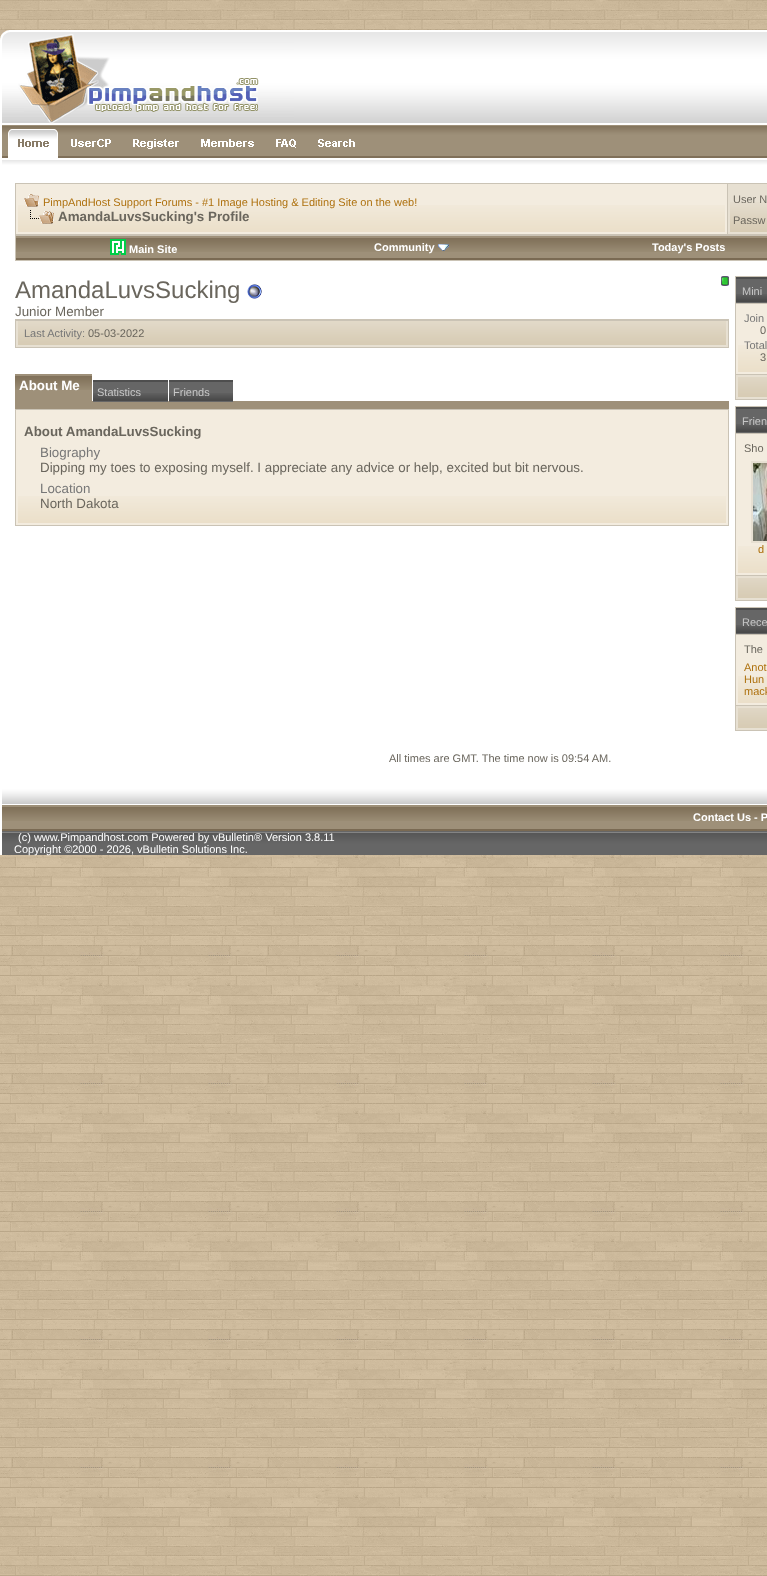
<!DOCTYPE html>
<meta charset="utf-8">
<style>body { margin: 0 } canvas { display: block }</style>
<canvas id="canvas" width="767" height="1576"></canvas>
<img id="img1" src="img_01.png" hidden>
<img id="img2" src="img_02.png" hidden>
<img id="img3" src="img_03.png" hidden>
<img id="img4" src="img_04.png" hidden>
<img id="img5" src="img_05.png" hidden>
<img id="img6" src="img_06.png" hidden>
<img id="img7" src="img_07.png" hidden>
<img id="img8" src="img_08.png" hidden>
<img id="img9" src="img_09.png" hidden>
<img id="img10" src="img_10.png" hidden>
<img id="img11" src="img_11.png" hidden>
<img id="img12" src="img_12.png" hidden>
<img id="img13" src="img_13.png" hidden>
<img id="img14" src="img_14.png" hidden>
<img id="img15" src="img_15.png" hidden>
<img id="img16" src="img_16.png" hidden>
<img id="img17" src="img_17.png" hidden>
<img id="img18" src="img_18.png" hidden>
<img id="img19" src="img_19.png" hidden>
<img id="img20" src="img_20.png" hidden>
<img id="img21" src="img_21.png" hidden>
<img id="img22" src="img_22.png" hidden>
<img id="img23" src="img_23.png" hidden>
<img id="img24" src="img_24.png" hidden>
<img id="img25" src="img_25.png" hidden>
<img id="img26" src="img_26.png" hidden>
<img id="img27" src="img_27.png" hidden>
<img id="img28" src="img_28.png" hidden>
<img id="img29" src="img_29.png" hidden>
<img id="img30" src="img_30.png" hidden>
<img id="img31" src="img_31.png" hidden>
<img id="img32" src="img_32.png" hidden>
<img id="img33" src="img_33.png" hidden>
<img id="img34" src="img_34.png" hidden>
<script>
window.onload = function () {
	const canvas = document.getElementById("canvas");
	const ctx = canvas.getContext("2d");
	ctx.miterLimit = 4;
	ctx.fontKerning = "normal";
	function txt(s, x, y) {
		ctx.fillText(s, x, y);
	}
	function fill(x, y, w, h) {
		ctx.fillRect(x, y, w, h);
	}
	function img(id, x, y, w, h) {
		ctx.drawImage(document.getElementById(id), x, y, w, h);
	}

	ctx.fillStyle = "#FFFFFF";
	fill(0, 0, 767, 1576);
	img("img1", 0, 0, 767, 1576);
	img("img2", 0, 30, 294, 95);
	img("img3", 294, 30, 473, 95);
	fill(0, 125, 2, 58);
	img("img4", 2, 125, 63, 33);
	img("img5", 65, 125, 57, 33);
	img("img6", 122, 125, 67, 33);
	img("img7", 189, 125, 75, 33);
	img("img8", 264, 125, 43, 33);
	img("img9", 307, 125, 59, 33);
	img("img10", 366, 125, 401, 33);
	img("img11", 2, 158, 765, 25);
	fill(0, 183, 767, 596);
	ctx.fillStyle = "#CAC3B5";
	fill(15, 183, 752, 78);
	ctx.fillStyle = "#F3ECDF";
	fill(18, 186, 707, 19);
	img("img12", 18, 205, 707, 27);
	ctx.strokeStyle = "#F3ECDF";
	ctx.lineWidth = 2;
	ctx.strokeRect(17, 185, 709, 48);
	img("img13", 24, 194, 15, 13);
	img("img14", 30, 210, 24, 14);
	ctx.fillStyle = "#E7E0D2";
	fill(730, 186, 37, 16);
	img("img15", 730, 202, 37, 30);
	ctx.strokeStyle = "#E7E0D2";
	ctx.strokeRect(729, 185, 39, 48);
	ctx.fillStyle = "#9E9079";
	fill(16, 236, 751, 22);
	img("img16", 16, 238, 256, 14);
	ctx.fillStyle = "#7A6A53";
	fill(16, 258, 751, 2);
	img("img17", 110, 239, 16, 16);
	img("img18", 272, 238, 279, 14);
	img("img19", 438, 244, 11, 7);
	img("img20", 551, 238, 216, 14);
	img("img21", 247, 284, 15, 15);
	img("img22", 721, 276, 8, 10);
	ctx.fillStyle = "#CAC3B5";
	fill(15, 319, 714, 29);
	img("img23", 18, 321, 708, 24);
	ctx.fillStyle = "#E7E0D2";
	fill(726, 321, 2, 26);
	fill(16, 345, 712, 2);
	fill(16, 321, 2, 26);
	ctx.fillStyle = "#9E9079";
	fill(15, 374, 77, 27);
	img("img24", 15, 376, 77, 14);
	fill(15, 401, 714, 8);
	ctx.fillStyle = "#666666";
	fill(93, 382, 75, 20);
	img("img25", 93, 393, 75, 8);
	ctx.fillStyle = "#4E4E4E";
	fill(93, 380, 75, 2);
	ctx.fillStyle = "#666666";
	fill(169, 382, 64, 20);
	img("img26", 169, 393, 64, 8);
	ctx.fillStyle = "#4E4E4E";
	fill(169, 380, 64, 2);
	ctx.fillStyle = "#CAC3B5";
	fill(15, 409, 714, 117);
	ctx.fillStyle = "#F3ECDF";
	fill(18, 412, 708, 84);
	img("img27", 18, 496, 708, 27);
	ctx.strokeStyle = "#F3ECDF";
	ctx.strokeRect(17, 411, 710, 113);
	ctx.fillStyle = "#CAC3B5";
	fill(735, 276, 32, 124);
	ctx.fillStyle = "#666666";
	fill(736, 279, 31, 24);
	img("img28", 736, 294, 31, 8);
	ctx.fillStyle = "#4E4E4E";
	fill(736, 277, 31, 2);
	ctx.fillStyle = "#F3ECDF";
	fill(738, 306, 29, 39);
	img("img29", 738, 345, 29, 27);
	ctx.strokeRect(737, 305, 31, 68);
	img("img30", 738, 377, 29, 20);
	ctx.strokeStyle = "#E7E0D2";
	ctx.strokeRect(737, 376, 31, 22);
	ctx.fillStyle = "#CAC3B5";
	fill(735, 406, 32, 195);
	ctx.fillStyle = "#666666";
	fill(736, 409, 31, 24);
	img("img28", 736, 424, 31, 8);
	ctx.fillStyle = "#4E4E4E";
	fill(736, 407, 31, 2);
	ctx.fillStyle = "#F3ECDF";
	fill(738, 436, 29, 110);
	img("img29", 738, 546, 29, 27);
	ctx.strokeStyle = "#F3ECDF";
	ctx.strokeRect(737, 435, 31, 139);
	img("img31", 753, 463, 14, 78);
	ctx.strokeStyle = "#E7E0D2";
	ctx.strokeRect(752, 462, 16, 80);
	img("img30", 738, 578, 29, 20);
	ctx.strokeRect(737, 577, 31, 22);
	ctx.fillStyle = "#CAC3B5";
	fill(735, 607, 32, 124);
	ctx.fillStyle = "#666666";
	fill(736, 610, 31, 24);
	img("img28", 736, 625, 31, 8);
	ctx.fillStyle = "#4E4E4E";
	fill(736, 608, 31, 2);
	ctx.fillStyle = "#F3ECDF";
	fill(738, 637, 29, 39);
	img("img29", 738, 676, 29, 27);
	ctx.strokeStyle = "#F3ECDF";
	ctx.strokeRect(737, 636, 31, 68);
	img("img30", 738, 708, 29, 20);
	ctx.strokeStyle = "#E7E0D2";
	ctx.strokeRect(737, 707, 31, 22);
	ctx.fillStyle = "#FFFFFF";
	fill(0, 779, 2, 76);
	img("img32", 2, 779, 765, 26);
	ctx.fillStyle = "#9E9079";
	fill(2, 805, 765, 24);
	img("img33", 2, 807, 765, 14);
	ctx.fillStyle = "#7A6A53";
	fill(2, 829, 765, 2);
	img("img34", 2, 831, 765, 24);
	ctx.font = "11px Liberation Sans";
	ctx.fillStyle = "#AE710E";
	txt("PimpAndHost Support Forums - #1 Image Hosting & Editing Site on the web!", 43, 206);
	ctx.font = "bold 13.35px Liberation Sans";
	ctx.fillStyle = "#6A665D";
	txt("AmandaLuvsSucking's Profile", 58, 221);
	ctx.font = "11px Liberation Sans";
	txt("User N", 733, 203);
	txt("Passw", 733, 224);
	ctx.font = "bold 11px Liberation Sans";
	ctx.fillStyle = "#FFFFFF";
	txt("Main Site", 129, 253);
	txt("Community", 374, 251);
	txt("Today's Posts", 652, 251);
	ctx.font = "24px Liberation Sans";
	ctx.fillStyle = "#6A665D";
	txt("AmandaLuvsSucking", 15, 298);
	ctx.font = "13.35px Liberation Sans";
	txt("Junior Member", 15, 316);
	ctx.font = "11px Liberation Sans";
	ctx.fillStyle = "#777777";
	txt("Last Activity:", 24, 337);
	ctx.fillStyle = "#6A665D";
	txt("05-03-2022", 88, 337);
	ctx.font = "bold 13.35px Liberation Sans";
	ctx.fillStyle = "#FFFFFF";
	txt("About Me", 19, 390);
	ctx.font = "11px Liberation Sans";
	ctx.fillStyle = "#C7C7C7";
	txt("Statistics", 97, 396);
	txt("Friends", 173, 396);
	ctx.font = "bold 13.35px Liberation Sans";
	ctx.fillStyle = "#6A665D";
	txt("About AmandaLuvsSucking", 24, 436);
	ctx.font = "13.35px Liberation Sans";
	ctx.fillStyle = "#777777";
	txt("Biography", 40, 457);
	ctx.fillStyle = "#6A665D";
	txt("Dipping my toes to exposing myself. I appreciate any advice or help, excited but bit nervous.", 40, 472);
	ctx.fillStyle = "#777777";
	txt("Location", 40, 493);
	ctx.fillStyle = "#6A665D";
	txt("North Dakota", 40, 508);
	ctx.font = "11px Liberation Sans";
	ctx.fillStyle = "#C7C7C7";
	txt("Mini", 742, 295);
	ctx.fillStyle = "#777777";
	txt("Join", 744, 322);
	ctx.fillStyle = "#6A665D";
	txt("0", 760, 334);
	ctx.fillStyle = "#777777";
	txt("Total", 744, 349);
	ctx.fillStyle = "#6A665D";
	txt("3", 760, 361);
	ctx.fillStyle = "#C7C7C7";
	txt("Frien", 742, 425);
	ctx.fillStyle = "#6A665D";
	txt("Sho", 744, 452);
	ctx.fillStyle = "#AE710E";
	txt("d", 758, 553);
	ctx.fillStyle = "#C7C7C7";
	txt("Rece", 742, 626);
	ctx.fillStyle = "#6A665D";
	txt("The", 744, 653);
	ctx.fillStyle = "#AE710E";
	txt("Anot", 744, 671);
	txt("Hun", 744, 683);
	txt("mack", 744, 695);
	ctx.fillStyle = "#6A665D";
	txt("All times are GMT. The time now is 09:54 AM.", 389, 762);
	ctx.font = "bold 11px Liberation Sans";
	ctx.fillStyle = "#FFFFFF";
	txt("Contact Us - P", 693, 821);
	ctx.font = "11px Liberation Sans";
	txt("(c) www.Pimpandhost.com Powered by vBulletin® Version 3.8.11", 18, 841);
	txt("Copyright ©2000 - 2026, vBulletin Solutions Inc.", 14, 853);
};
</script>
